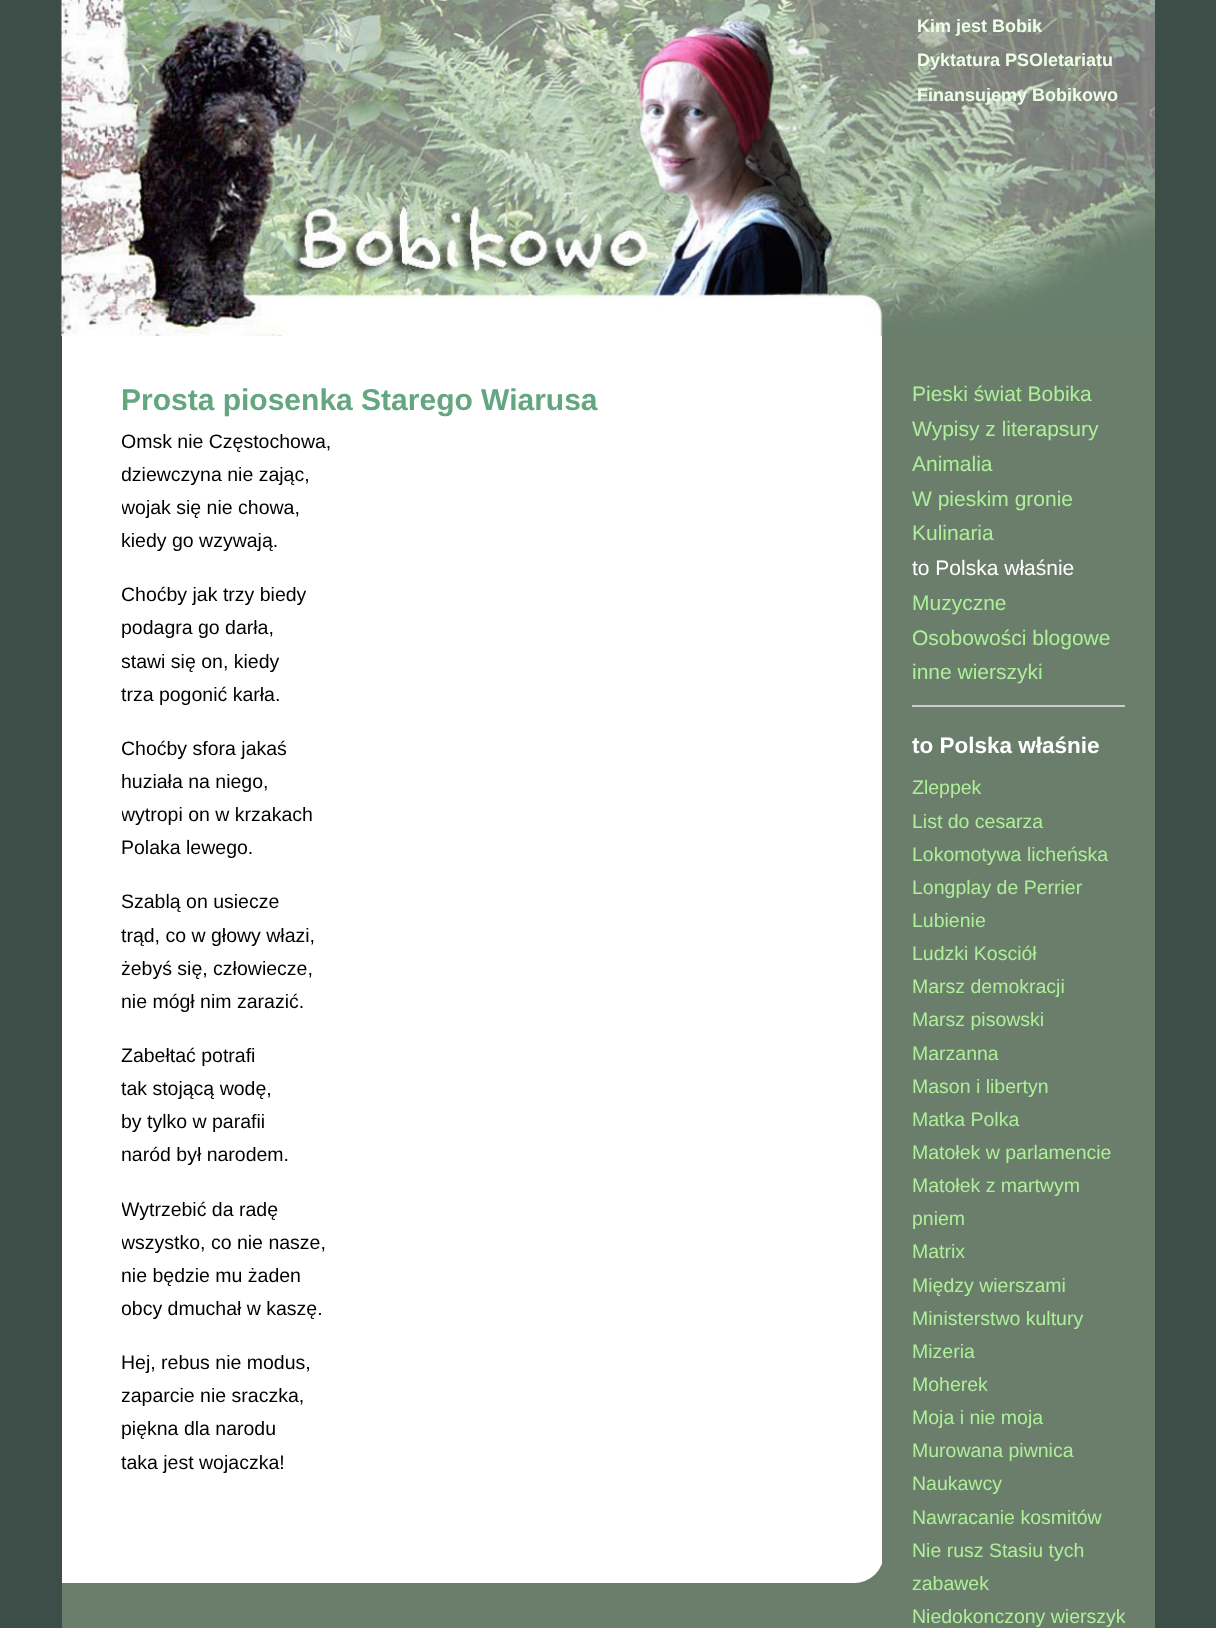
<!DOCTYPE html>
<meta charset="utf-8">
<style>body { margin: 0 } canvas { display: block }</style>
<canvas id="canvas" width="1216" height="1628"></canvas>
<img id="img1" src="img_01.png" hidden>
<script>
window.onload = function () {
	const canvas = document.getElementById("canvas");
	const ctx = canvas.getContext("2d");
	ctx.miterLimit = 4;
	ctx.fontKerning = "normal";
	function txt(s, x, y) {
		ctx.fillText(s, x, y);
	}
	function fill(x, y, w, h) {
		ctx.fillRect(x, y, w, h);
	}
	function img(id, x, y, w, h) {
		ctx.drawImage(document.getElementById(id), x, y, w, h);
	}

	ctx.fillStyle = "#3D4D47";
	fill(0, 0, 1216, 1628);
	ctx.fillStyle = "#6B7E6B";
	fill(62, 1563, 820, 65);
	ctx.fillStyle = "#FFFFFF";
	ctx.beginPath();
	ctx.roundRect(62, 335, 822, 1248, [0, 0, 30, 0]);
	ctx.fill();
	img("img1", 61, 0, 1094, 336);
	ctx.fillStyle = "#6B7E6B";
	fill(882, 335, 273, 1293);
	ctx.fillStyle = "#CCCCCC";
	fill(912, 705, 213, 2);
	ctx.font = "bold 18px Liberation Sans";
	ctx.fillStyle = "#EEFFE8";
	txt("Kim jest Bobik", 917, 32);
	txt("Dyktatura PSOletariatu", 917, 66);
	txt("Finansujemy Bobikowo", 917, 101);
	ctx.font = "bold 30px Liberation Sans";
	ctx.fillStyle = "#63A67F";
	txt("Prosta piosenka Starego Wiarusa", 121, 410);
	ctx.save();
	ctx.beginPath();
	ctx.rect(122, 425, 715, 1075);
	ctx.clip();
	ctx.font = "19.5px Liberation Sans";
	ctx.fillStyle = "#000000";
	txt("Omsk nie Częstochowa,", 121, 448);
	txt("dziewczyna nie zając,", 121, 481);
	txt("wojak się nie chowa,", 121, 514);
	ctx.restore();
	ctx.font = "19.5px Liberation Sans";
	ctx.fillStyle = "#000000";
	txt("kiedy go wzywają.", 121, 547);
	ctx.save();
	ctx.beginPath();
	ctx.rect(122, 425, 715, 1075);
	ctx.clip();
	txt("Choćby jak trzy biedy", 121, 601);
	ctx.restore();
	txt("podagra go darła,", 121, 634);
	ctx.save();
	ctx.beginPath();
	ctx.rect(122, 425, 715, 1075);
	ctx.clip();
	txt("stawi się on, kiedy", 121, 668);
	ctx.restore();
	txt("trza pogonić karła.", 121, 701);
	ctx.save();
	ctx.beginPath();
	ctx.rect(122, 425, 715, 1075);
	ctx.clip();
	txt("Choćby sfora jakaś", 121, 755);
	ctx.restore();
	txt("huziała na niego,", 121, 788);
	ctx.save();
	ctx.beginPath();
	ctx.rect(122, 425, 715, 1075);
	ctx.clip();
	txt("wytropi on w krzakach", 121, 821);
	ctx.restore();
	txt("Polaka lewego.", 121, 854);
	txt("Szablą on usiecze", 121, 908);
	txt("trąd, co w głowy włazi,", 121, 942);
	ctx.save();
	ctx.beginPath();
	ctx.rect(122, 425, 715, 1075);
	ctx.clip();
	txt("żebyś się, człowiecze,", 121, 975);
	ctx.restore();
	txt("nie mógł nim zarazić.", 121, 1008);
	txt("Zabełtać potrafi", 121, 1062);
	txt("tak stojącą wodę,", 121, 1095);
	txt("by tylko w parafii", 121, 1128);
	txt("naród był narodem.", 121, 1161);
	ctx.save();
	ctx.beginPath();
	ctx.rect(122, 425, 715, 1075);
	ctx.clip();
	txt("Wytrzebić da radę", 121, 1216);
	txt("wszystko, co nie nasze,", 121, 1249);
	ctx.restore();
	txt("nie będzie mu żaden", 121, 1282);
	ctx.save();
	ctx.beginPath();
	ctx.rect(122, 425, 715, 1075);
	ctx.clip();
	txt("obcy dmuchał w kaszę.", 121, 1315);
	ctx.restore();
	txt("Hej, rebus nie modus,", 121, 1369);
	ctx.save();
	ctx.beginPath();
	ctx.rect(122, 425, 715, 1075);
	ctx.clip();
	txt("zaparcie nie sraczka,", 121, 1402);
	ctx.restore();
	txt("piękna dla narodu", 121, 1435);
	txt("taka jest wojaczka!", 121, 1469);
	ctx.font = "21px Liberation Sans";
	ctx.fillStyle = "#AEF099";
	txt("Pieski świat Bobika", 912, 401);
	txt("Wypisy z literapsury", 912, 436);
	txt("Animalia", 912, 471);
	txt("W pieskim gronie", 912, 506);
	txt("Kulinaria", 912, 540);
	ctx.fillStyle = "#FFFFFF";
	txt("to Polska właśnie", 912, 575);
	ctx.fillStyle = "#AEF099";
	txt("Muzyczne", 912, 610);
	txt("Osobowości blogowe", 912, 645);
	txt("inne wierszyki", 912, 679);
	ctx.font = "bold 22.5px Liberation Sans";
	ctx.fillStyle = "#FFFFFF";
	txt("to Polska właśnie", 912, 753);
	ctx.font = "19.5px Liberation Sans";
	ctx.fillStyle = "#AEF099";
	txt("Zleppek", 912, 794);
	txt("List do cesarza", 912, 828);
	txt("Lokomotywa licheńska", 912, 861);
	txt("Longplay de Perrier", 912, 894);
	txt("Lubienie", 912, 927);
	txt("Ludzki Kosciół", 912, 960);
	txt("Marsz demokracji", 912, 993);
	txt("Marsz pisowski", 912, 1026);
	txt("Marzanna", 912, 1060);
	txt("Mason i libertyn", 912, 1093);
	txt("Matka Polka", 912, 1126);
	txt("Matołek w parlamencie", 912, 1159);
	txt("Matołek z martwym", 912, 1192);
	txt("pniem", 912, 1225);
	txt("Matrix", 912, 1258);
	txt("Między wierszami", 912, 1292);
	txt("Ministerstwo kultury", 912, 1325);
	txt("Mizeria", 912, 1358);
	txt("Moherek", 912, 1391);
	txt("Moja i nie moja", 912, 1424);
	txt("Murowana piwnica", 912, 1457);
	txt("Naukawcy", 912, 1490);
	txt("Nawracanie kosmitów", 912, 1524);
	txt("Nie rusz Stasiu tych", 912, 1557);
	txt("zabawek", 912, 1590);
	txt("Niedokonczony wierszyk", 912, 1623);
};
</script>
